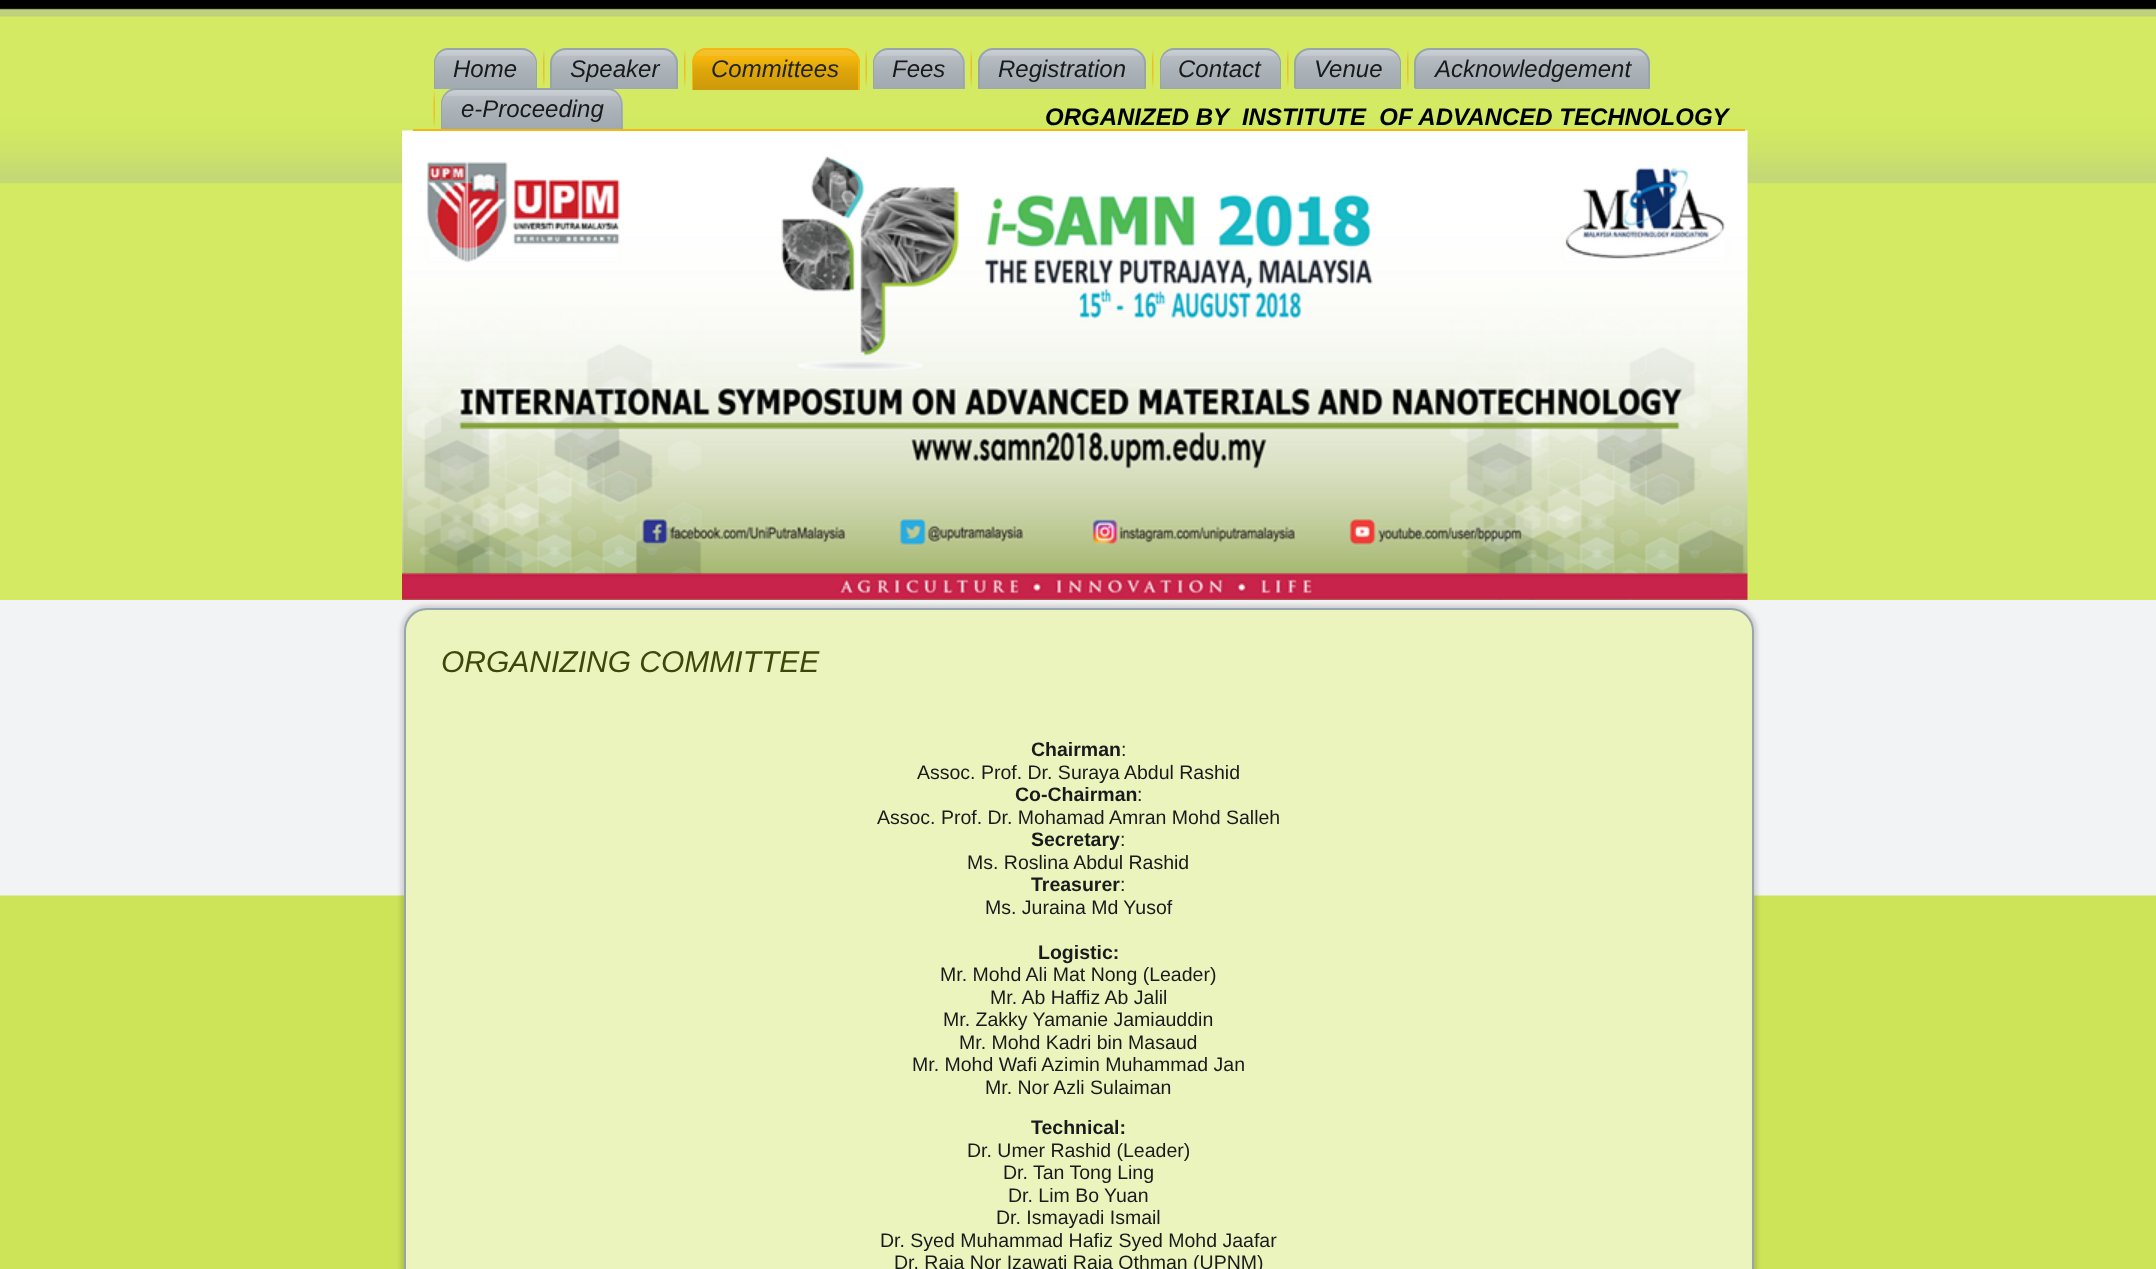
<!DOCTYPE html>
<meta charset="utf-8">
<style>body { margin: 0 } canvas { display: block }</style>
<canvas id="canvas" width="2156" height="1269"></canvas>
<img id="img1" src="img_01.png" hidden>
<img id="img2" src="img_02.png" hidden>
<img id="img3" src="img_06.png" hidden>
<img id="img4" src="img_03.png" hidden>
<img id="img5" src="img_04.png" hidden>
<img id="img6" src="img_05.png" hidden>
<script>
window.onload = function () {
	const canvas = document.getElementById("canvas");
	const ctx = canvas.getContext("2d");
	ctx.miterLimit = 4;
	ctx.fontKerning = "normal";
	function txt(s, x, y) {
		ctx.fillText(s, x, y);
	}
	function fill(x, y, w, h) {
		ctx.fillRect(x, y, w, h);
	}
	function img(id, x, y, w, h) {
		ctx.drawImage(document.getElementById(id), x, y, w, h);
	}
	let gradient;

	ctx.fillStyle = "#CDE458";
	fill(0, 0, 2156, 1269);
	img("img1", 0, 600, 2156, 296);
	img("img2", 0, 0, 2156, 600);
	img("img3", 402, 130, 1346, 470);
	ctx.fillStyle = "#F4B710";
	fill(413, 129, 1332, 2);
	gradient = ctx.createLinearGradient(485, 48, 485, 89);
	gradient.addColorStop(0, "#CACFD3");
	gradient.addColorStop(0.1, "#C7CDD1");
	gradient.addColorStop(0.2, "#BFC5CA");
	gradient.addColorStop(0.2, "#B7BDC3");
	gradient.addColorStop(0.5, "#ACB3B9");
	gradient.addColorStop(1, "#A0A9B0");
	ctx.fillStyle = gradient;
	ctx.beginPath();
	ctx.roundRect(434, 48, 103, 41, [15, 15, 0, 0]);
	ctx.fill();
	ctx.fillStyle = "#9AA4AB";
	ctx.beginPath();
	ctx.moveTo(448, 48);
	ctx.lineTo(522, 48);
	ctx.bezierCurveTo(530, 48, 537, 55, 537, 63);
	ctx.lineTo(537, 88);
	ctx.lineTo(434, 88);
	ctx.lineTo(434, 63);
	ctx.bezierCurveTo(434, 55, 440, 48, 448, 48);
	ctx.closePath();
	ctx.moveTo(448, 50);
	ctx.lineTo(522, 50);
	ctx.bezierCurveTo(529, 50, 536, 56, 536, 63);
	ctx.lineTo(536, 88);
	ctx.lineTo(435, 88);
	ctx.lineTo(435, 63);
	ctx.bezierCurveTo(435, 56, 441, 50, 448, 50);
	ctx.closePath();
	ctx.fill("evenodd");
	img("img4", 543, 49, 2, 38);
	gradient = ctx.createLinearGradient(614, 48, 614, 89);
	gradient.addColorStop(0, "#CACFD3");
	gradient.addColorStop(0.1, "#C7CDD1");
	gradient.addColorStop(0.2, "#BFC5CA");
	gradient.addColorStop(0.2, "#B7BDC3");
	gradient.addColorStop(0.5, "#ACB3B9");
	gradient.addColorStop(1, "#A0A9B0");
	ctx.fillStyle = gradient;
	ctx.beginPath();
	ctx.roundRect(551, 48, 127, 41, [15, 15, 0, 0]);
	ctx.fill();
	ctx.fillStyle = "#9AA4AB";
	ctx.beginPath();
	ctx.moveTo(566, 48);
	ctx.lineTo(663, 48);
	ctx.bezierCurveTo(671, 48, 678, 55, 678, 63);
	ctx.lineTo(678, 88);
	ctx.lineTo(550, 88);
	ctx.lineTo(550, 63);
	ctx.bezierCurveTo(550, 55, 557, 48, 566, 48);
	ctx.closePath();
	ctx.moveTo(566, 50);
	ctx.lineTo(663, 50);
	ctx.bezierCurveTo(670, 50, 676, 56, 676, 63);
	ctx.lineTo(676, 88);
	ctx.lineTo(552, 88);
	ctx.lineTo(552, 63);
	ctx.bezierCurveTo(552, 56, 558, 50, 566, 50);
	ctx.closePath();
	ctx.fill("evenodd");
	img("img4", 684, 49, 2, 38);
	gradient = ctx.createLinearGradient(776, 48, 776, 90);
	gradient.addColorStop(0, "#F6C337");
	gradient.addColorStop(0.1, "#F5C02E");
	gradient.addColorStop(0.2, "#F5BD24");
	gradient.addColorStop(0.2, "#F4B710");
	gradient.addColorStop(0.26, "#F4B60B");
	gradient.addColorStop(0.5, "#E0A70B");
	gradient.addColorStop(1, "#CD990A");
	ctx.fillStyle = gradient;
	ctx.beginPath();
	ctx.roundRect(692, 48, 168, 42, [15, 15, 0, 0]);
	ctx.fill();
	ctx.fillStyle = "#F4B710";
	ctx.beginPath();
	ctx.moveTo(706, 48);
	ctx.lineTo(844, 48);
	ctx.bezierCurveTo(853, 48, 860, 55, 860, 63);
	ctx.lineTo(860, 90);
	ctx.lineTo(692, 90);
	ctx.lineTo(692, 63);
	ctx.bezierCurveTo(692, 55, 698, 48, 706, 48);
	ctx.closePath();
	ctx.moveTo(706, 50);
	ctx.lineTo(844, 50);
	ctx.bezierCurveTo(852, 50, 858, 56, 858, 63);
	ctx.lineTo(858, 90);
	ctx.lineTo(693, 90);
	ctx.lineTo(693, 63);
	ctx.bezierCurveTo(693, 56, 699, 50, 706, 50);
	ctx.closePath();
	ctx.fill("evenodd");
	img("img5", 865, 49, 2, 38);
	gradient = ctx.createLinearGradient(919, 48, 919, 89);
	gradient.addColorStop(0, "#CACFD3");
	gradient.addColorStop(0.1, "#C7CDD1");
	gradient.addColorStop(0.2, "#BFC5CA");
	gradient.addColorStop(0.2, "#B7BDC3");
	gradient.addColorStop(0.5, "#ACB3B9");
	gradient.addColorStop(1, "#A0A9B0");
	ctx.fillStyle = gradient;
	ctx.beginPath();
	ctx.roundRect(873, 48, 92, 41, [15, 15, 0, 0]);
	ctx.fill();
	ctx.fillStyle = "#9AA4AB";
	ctx.beginPath();
	ctx.moveTo(888, 48);
	ctx.lineTo(950, 48);
	ctx.bezierCurveTo(958, 48, 964, 55, 964, 63);
	ctx.lineTo(964, 88);
	ctx.lineTo(873, 88);
	ctx.lineTo(873, 63);
	ctx.bezierCurveTo(873, 55, 880, 48, 888, 48);
	ctx.closePath();
	ctx.moveTo(888, 50);
	ctx.lineTo(950, 50);
	ctx.bezierCurveTo(957, 50, 963, 56, 963, 63);
	ctx.lineTo(963, 88);
	ctx.lineTo(874, 88);
	ctx.lineTo(874, 63);
	ctx.bezierCurveTo(874, 56, 881, 50, 888, 50);
	ctx.closePath();
	ctx.fill("evenodd");
	img("img5", 970, 49, 2, 38);
	gradient = ctx.createLinearGradient(1062, 48, 1062, 89);
	gradient.addColorStop(0, "#CACFD3");
	gradient.addColorStop(0.1, "#C7CDD1");
	gradient.addColorStop(0.2, "#BFC5CA");
	gradient.addColorStop(0.2, "#B7BDC3");
	gradient.addColorStop(0.5, "#ACB3B9");
	gradient.addColorStop(1, "#A0A9B0");
	ctx.fillStyle = gradient;
	ctx.beginPath();
	ctx.roundRect(978, 48, 168, 41, [15, 15, 0, 0]);
	ctx.fill();
	ctx.fillStyle = "#9AA4AB";
	ctx.beginPath();
	ctx.moveTo(993, 48);
	ctx.lineTo(1131, 48);
	ctx.bezierCurveTo(1139, 48, 1146, 55, 1146, 63);
	ctx.lineTo(1146, 88);
	ctx.lineTo(978, 88);
	ctx.lineTo(978, 63);
	ctx.bezierCurveTo(978, 55, 985, 48, 993, 48);
	ctx.closePath();
	ctx.moveTo(993, 50);
	ctx.lineTo(1131, 50);
	ctx.bezierCurveTo(1138, 50, 1144, 56, 1144, 63);
	ctx.lineTo(1144, 88);
	ctx.lineTo(980, 88);
	ctx.lineTo(980, 63);
	ctx.bezierCurveTo(980, 56, 986, 50, 993, 50);
	ctx.closePath();
	ctx.fill("evenodd");
	img("img4", 1152, 49, 2, 38);
	gradient = ctx.createLinearGradient(1220, 48, 1220, 89);
	gradient.addColorStop(0, "#CACFD3");
	gradient.addColorStop(0.1, "#C7CDD1");
	gradient.addColorStop(0.2, "#BFC5CA");
	gradient.addColorStop(0.2, "#B7BDC3");
	gradient.addColorStop(0.5, "#ACB3B9");
	gradient.addColorStop(1, "#A0A9B0");
	ctx.fillStyle = gradient;
	ctx.beginPath();
	ctx.roundRect(1160, 48, 121, 41, [15, 15, 0, 0]);
	ctx.fill();
	ctx.fillStyle = "#9AA4AB";
	ctx.beginPath();
	ctx.moveTo(1174, 48);
	ctx.lineTo(1266, 48);
	ctx.bezierCurveTo(1274, 48, 1281, 55, 1281, 63);
	ctx.lineTo(1281, 88);
	ctx.lineTo(1160, 88);
	ctx.lineTo(1160, 63);
	ctx.bezierCurveTo(1160, 55, 1166, 48, 1174, 48);
	ctx.closePath();
	ctx.moveTo(1174, 50);
	ctx.lineTo(1266, 50);
	ctx.bezierCurveTo(1273, 50, 1280, 56, 1280, 63);
	ctx.lineTo(1280, 88);
	ctx.lineTo(1161, 88);
	ctx.lineTo(1161, 63);
	ctx.bezierCurveTo(1161, 56, 1167, 50, 1174, 50);
	ctx.closePath();
	ctx.fill("evenodd");
	img("img4", 1287, 49, 2, 38);
	gradient = ctx.createLinearGradient(1348, 48, 1348, 89);
	gradient.addColorStop(0, "#CACFD3");
	gradient.addColorStop(0.1, "#C7CDD1");
	gradient.addColorStop(0.2, "#BFC5CA");
	gradient.addColorStop(0.2, "#B7BDC3");
	gradient.addColorStop(0.5, "#ACB3B9");
	gradient.addColorStop(1, "#A0A9B0");
	ctx.fillStyle = gradient;
	ctx.beginPath();
	ctx.roundRect(1295, 48, 106, 41, [15, 15, 0, 0]);
	ctx.fill();
	ctx.fillStyle = "#9AA4AB";
	ctx.beginPath();
	ctx.moveTo(1310, 48);
	ctx.lineTo(1386, 48);
	ctx.bezierCurveTo(1394, 48, 1401, 55, 1401, 63);
	ctx.lineTo(1401, 88);
	ctx.lineTo(1294, 88);
	ctx.lineTo(1294, 63);
	ctx.bezierCurveTo(1294, 55, 1301, 48, 1310, 48);
	ctx.closePath();
	ctx.moveTo(1310, 50);
	ctx.lineTo(1386, 50);
	ctx.bezierCurveTo(1393, 50, 1400, 56, 1400, 63);
	ctx.lineTo(1400, 88);
	ctx.lineTo(1296, 88);
	ctx.lineTo(1296, 63);
	ctx.bezierCurveTo(1296, 56, 1302, 50, 1310, 50);
	ctx.closePath();
	ctx.fill("evenodd");
	img("img4", 1407, 49, 2, 38);
	gradient = ctx.createLinearGradient(1532, 48, 1532, 89);
	gradient.addColorStop(0, "#CACFD3");
	gradient.addColorStop(0.1, "#C7CDD1");
	gradient.addColorStop(0.2, "#BFC5CA");
	gradient.addColorStop(0.2, "#B7BDC3");
	gradient.addColorStop(0.5, "#ACB3B9");
	gradient.addColorStop(1, "#A0A9B0");
	ctx.fillStyle = gradient;
	ctx.beginPath();
	ctx.roundRect(1415, 48, 235, 41, [15, 15, 0, 0]);
	ctx.fill();
	ctx.fillStyle = "#9AA4AB";
	ctx.beginPath();
	ctx.moveTo(1430, 48);
	ctx.lineTo(1635, 48);
	ctx.bezierCurveTo(1643, 48, 1650, 55, 1650, 63);
	ctx.lineTo(1650, 88);
	ctx.lineTo(1414, 88);
	ctx.lineTo(1414, 63);
	ctx.bezierCurveTo(1414, 55, 1421, 48, 1430, 48);
	ctx.closePath();
	ctx.moveTo(1430, 50);
	ctx.lineTo(1635, 50);
	ctx.bezierCurveTo(1642, 50, 1648, 56, 1648, 63);
	ctx.lineTo(1648, 88);
	ctx.lineTo(1416, 88);
	ctx.lineTo(1416, 63);
	ctx.bezierCurveTo(1416, 56, 1422, 50, 1430, 50);
	ctx.closePath();
	ctx.fill("evenodd");
	img("img6", 433, 90, 2, 37);
	gradient = ctx.createLinearGradient(532, 88, 532, 129);
	gradient.addColorStop(0, "#CACFD3");
	gradient.addColorStop(0.1, "#C7CDD1");
	gradient.addColorStop(0.2, "#BFC5CA");
	gradient.addColorStop(0.2, "#B7BDC3");
	gradient.addColorStop(0.5, "#ACB3B9");
	gradient.addColorStop(1, "#A0A9B0");
	ctx.fillStyle = gradient;
	ctx.beginPath();
	ctx.roundRect(441, 89, 182, 40, [15, 15, 0, 0]);
	ctx.fill();
	ctx.fillStyle = "#9AA4AB";
	ctx.beginPath();
	ctx.moveTo(456, 88);
	ctx.lineTo(608, 88);
	ctx.bezierCurveTo(616, 88, 622, 95, 622, 104);
	ctx.lineTo(622, 129);
	ctx.lineTo(441, 129);
	ctx.lineTo(441, 104);
	ctx.bezierCurveTo(441, 95, 448, 88, 456, 88);
	ctx.closePath();
	ctx.moveTo(456, 90);
	ctx.lineTo(608, 90);
	ctx.bezierCurveTo(615, 90, 621, 96, 621, 104);
	ctx.lineTo(621, 129);
	ctx.lineTo(442, 129);
	ctx.lineTo(442, 104);
	ctx.bezierCurveTo(442, 96, 449, 90, 456, 90);
	ctx.closePath();
	ctx.fill("evenodd");
	ctx.fillStyle = "rgba(0, 0, 0, 0.15)";
	ctx.filter = "blur(2px)";
	ctx.beginPath();
	ctx.roundRect(401, 605, 1356, 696, 26);
	ctx.fill();
	ctx.filter = "none";
	ctx.fillStyle = "#EBF4BD";
	ctx.beginPath();
	ctx.roundRect(405, 609, 1348, 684, 22);
	ctx.fill();
	ctx.strokeStyle = "#9AA4AB";
	ctx.lineWidth = 2;
	ctx.stroke();
	ctx.font = "italic 24px Liberation Sans";
	ctx.fillStyle = "#181A1C";
	txt("Home", 453, 77);
	txt("Speaker", 570, 77);
	ctx.fillStyle = "#1F2326";
	txt("Committees", 711, 77);
	ctx.fillStyle = "#181A1C";
	txt("Fees", 892, 77);
	txt("Registration", 998, 77);
	txt("Contact", 1178, 77);
	txt("Venue", 1314, 77);
	txt("Acknowledgement", 1435, 77);
	txt("e-Proceeding", 461, 117);
	ctx.font = "italic bold 24px Liberation Sans";
	ctx.fillStyle = "#000000";
	txt("ORGANIZED BY  INSTITUTE  OF ADVANCED TECHNOLOGY", 1045, 125);
	ctx.font = "italic 30px Liberation Sans";
	ctx.fillStyle = "#3D470B";
	txt("ORGANIZING COMMITTEE", 441, 672);
	ctx.font = "bold 19.5px Liberation Sans";
	ctx.fillStyle = "#181A1C";
	txt("Chairman", 1031, 756);
	ctx.font = "19.5px Liberation Sans";
	txt(":", 1121, 756);
	txt("Assoc. Prof. Dr. Suraya Abdul Rashid", 917, 779);
	ctx.font = "bold 19.5px Liberation Sans";
	txt("Co-Chairman", 1015, 801);
	ctx.font = "19.5px Liberation Sans";
	txt(":", 1137, 801);
	txt("Assoc. Prof. Dr. Mohamad Amran Mohd Salleh", 877, 824);
	ctx.font = "bold 19.5px Liberation Sans";
	txt("Secretary", 1031, 846);
	ctx.font = "19.5px Liberation Sans";
	txt(":", 1120, 846);
	txt("Ms. Roslina Abdul Rashid", 967, 869);
	ctx.font = "bold 19.5px Liberation Sans";
	txt("Treasurer", 1031, 891);
	ctx.font = "19.5px Liberation Sans";
	txt(":", 1120, 891);
	txt("Ms. Juraina Md Yusof", 985, 914);
	ctx.font = "bold 19.5px Liberation Sans";
	txt("Logistic:", 1038, 959);
	ctx.font = "19.5px Liberation Sans";
	txt("Mr. Mohd Ali Mat Nong (Leader)", 940, 981);
	txt("Mr. Ab Haffiz Ab Jalil", 990, 1004);
	txt("Mr. Zakky Yamanie Jamiauddin", 943, 1026);
	txt("Mr. Mohd Kadri bin Masaud", 959, 1049);
	txt("Mr. Mohd Wafi Azimin Muhammad Jan", 912, 1071);
	txt("Mr. Nor Azli Sulaiman", 985, 1094);
	ctx.font = "bold 19.5px Liberation Sans";
	txt("Technical:", 1031, 1134);
	ctx.font = "19.5px Liberation Sans";
	txt("Dr. Umer Rashid (Leader)", 967, 1157);
	txt("Dr. Tan Tong Ling", 1003, 1179);
	txt("Dr. Lim Bo Yuan", 1008, 1202);
	txt("Dr. Ismayadi Ismail", 996, 1224);
	txt("Dr. Syed Muhammad Hafiz Syed Mohd Jaafar", 880, 1247);
	txt("Dr. Raja Nor Izawati Raja Othman (UPNM)", 894, 1269);
};
</script>
